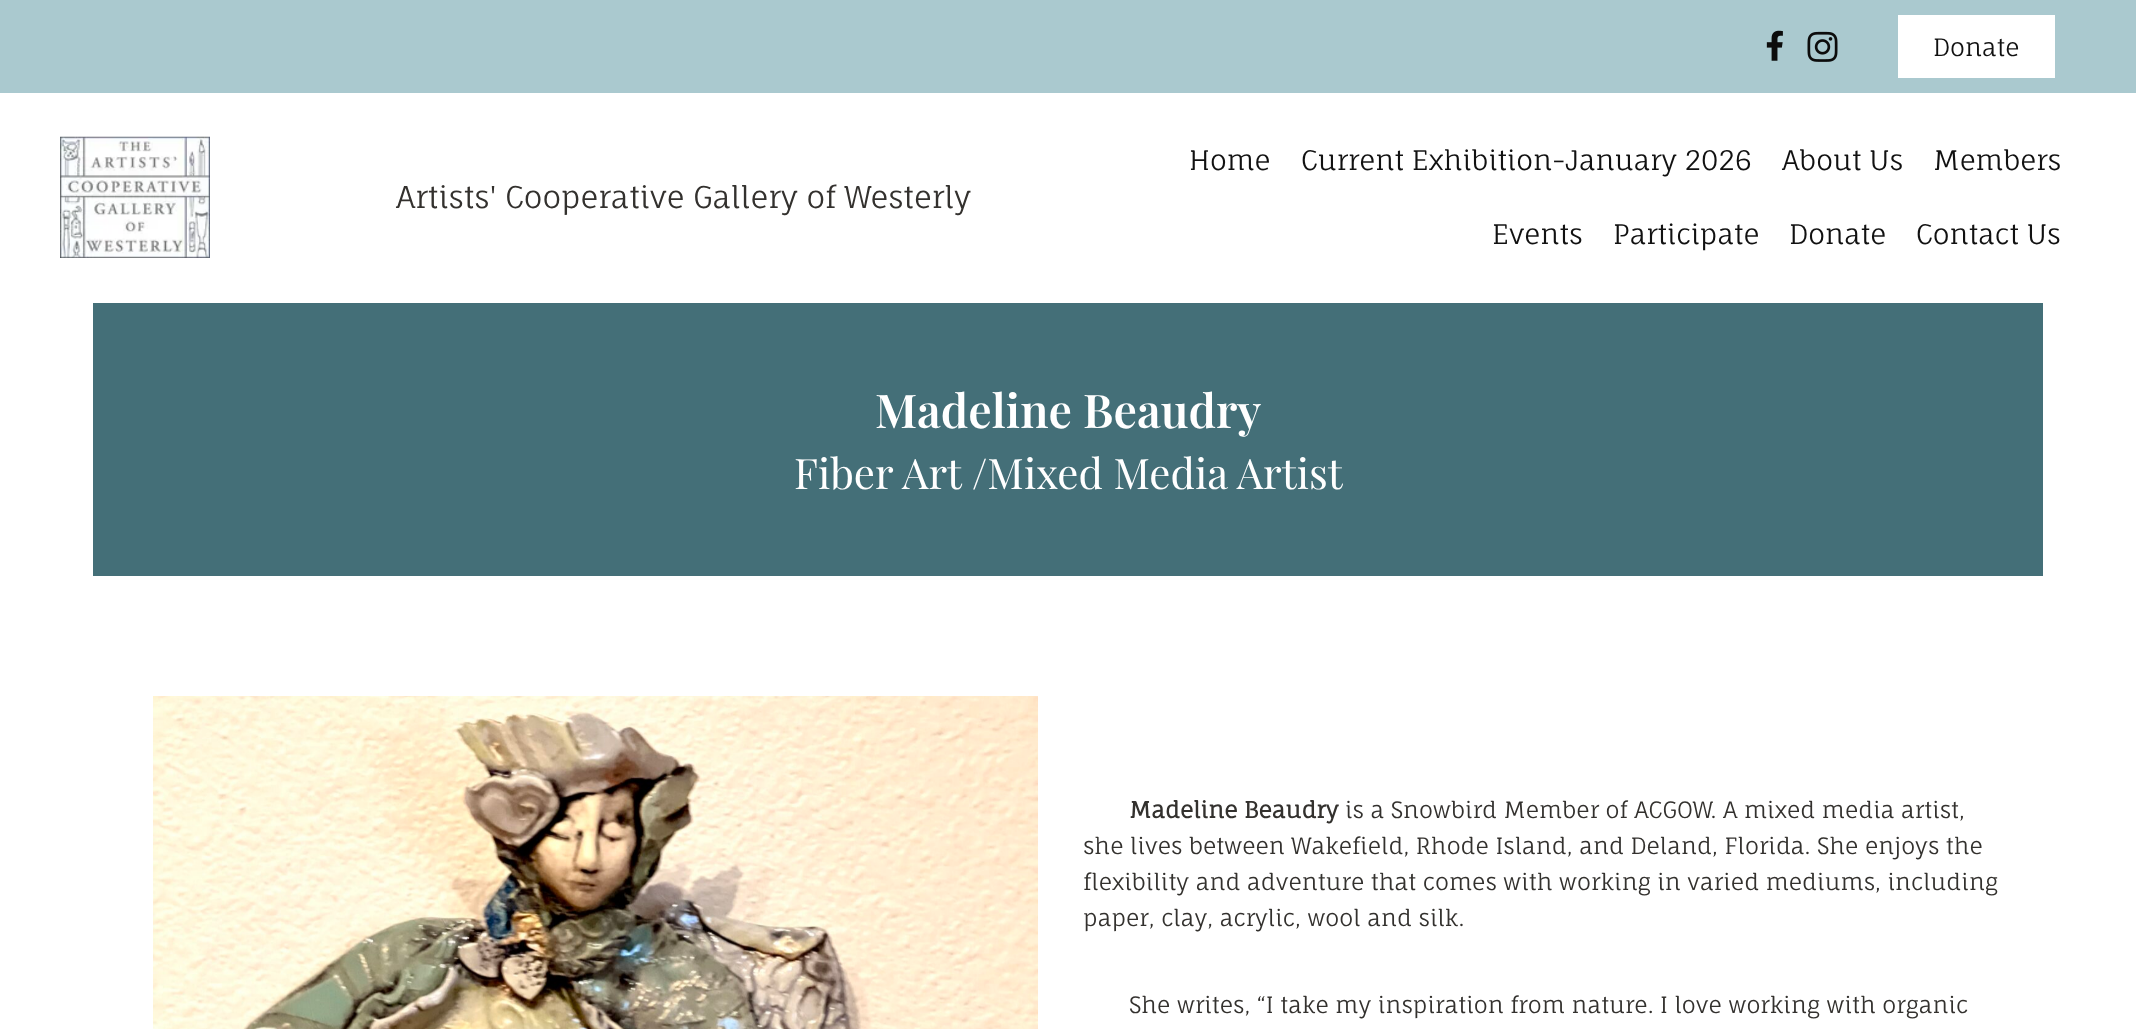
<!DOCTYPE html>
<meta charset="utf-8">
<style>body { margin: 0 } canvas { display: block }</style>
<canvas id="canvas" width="2136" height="1029"></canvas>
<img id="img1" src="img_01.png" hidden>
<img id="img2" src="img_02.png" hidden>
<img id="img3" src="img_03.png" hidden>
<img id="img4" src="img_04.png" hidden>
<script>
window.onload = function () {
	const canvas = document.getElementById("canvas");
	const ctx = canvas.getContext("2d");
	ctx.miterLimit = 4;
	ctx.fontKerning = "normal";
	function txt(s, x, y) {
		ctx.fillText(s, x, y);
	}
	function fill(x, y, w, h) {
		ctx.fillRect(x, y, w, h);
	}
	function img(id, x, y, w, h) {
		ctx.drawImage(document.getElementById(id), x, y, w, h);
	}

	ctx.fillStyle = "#FFFFFF";
	fill(0, 0, 2136, 1029);
	ctx.fillStyle = "#AAC9CF";
	fill(0, 0, 2136, 93);
	img("img1", 1766, 30, 17, 31);
	img("img2", 1807, 31, 31, 31);
	ctx.fillStyle = "#FFFFFF";
	fill(1898, 15, 157, 63);
	img("img3", 60, 136, 150, 122);
	ctx.fillStyle = "#446F78";
	fill(93, 303, 1950, 273);
	img("img4", 153, 696, 885, 333);
	ctx.font = "24px Fauna One";
	ctx.fillStyle = "#111111";
	txt("Donate", 1933, 56);
	ctx.font = "30px Fauna One";
	ctx.fillStyle = "#33312E";
	txt("Artists' Cooperative Gallery of Westerly", 396, 208);
	ctx.font = "27px Fauna One";
	ctx.fillStyle = "#111111";
	txt("Home", 1189, 170);
	txt("Current Exhibition-January 2026", 1301, 170);
	txt("About Us", 1782, 170);
	txt("Members", 1933, 170);
	txt("Events", 1492, 244);
	txt("Participate", 1613, 244);
	txt("Donate", 1789, 244);
	txt("Contact Us", 1916, 244);
	ctx.font = "600 46.5px Playfair Display";
	ctx.fillStyle = "#FFFFFF";
	txt("Madeline Beaudry", 875, 428);
	ctx.font = "42px Playfair Display";
	txt("Fiber Art /Mixed Media Artist", 794, 489);
	ctx.font = "bold 22.5px Fauna One";
	ctx.fillStyle = "#33312E";
	txt("Madeline Beaudry", 1129, 818);
	ctx.font = "22.5px Fauna One";
	txt("is a Snowbird Member of ACGOW. A mixed media artist,", 1345, 818);
	txt("she lives between Wakefield, Rhode Island, and Deland, Florida. She enjoys the", 1083, 854);
	txt("flexibility and adventure that comes with working in varied mediums, including", 1083, 890);
	txt("paper, clay, acrylic, wool and silk.", 1083, 926);
	txt("She writes, “I take my inspiration from nature. I love working with organic", 1129, 1013);
};
</script>
